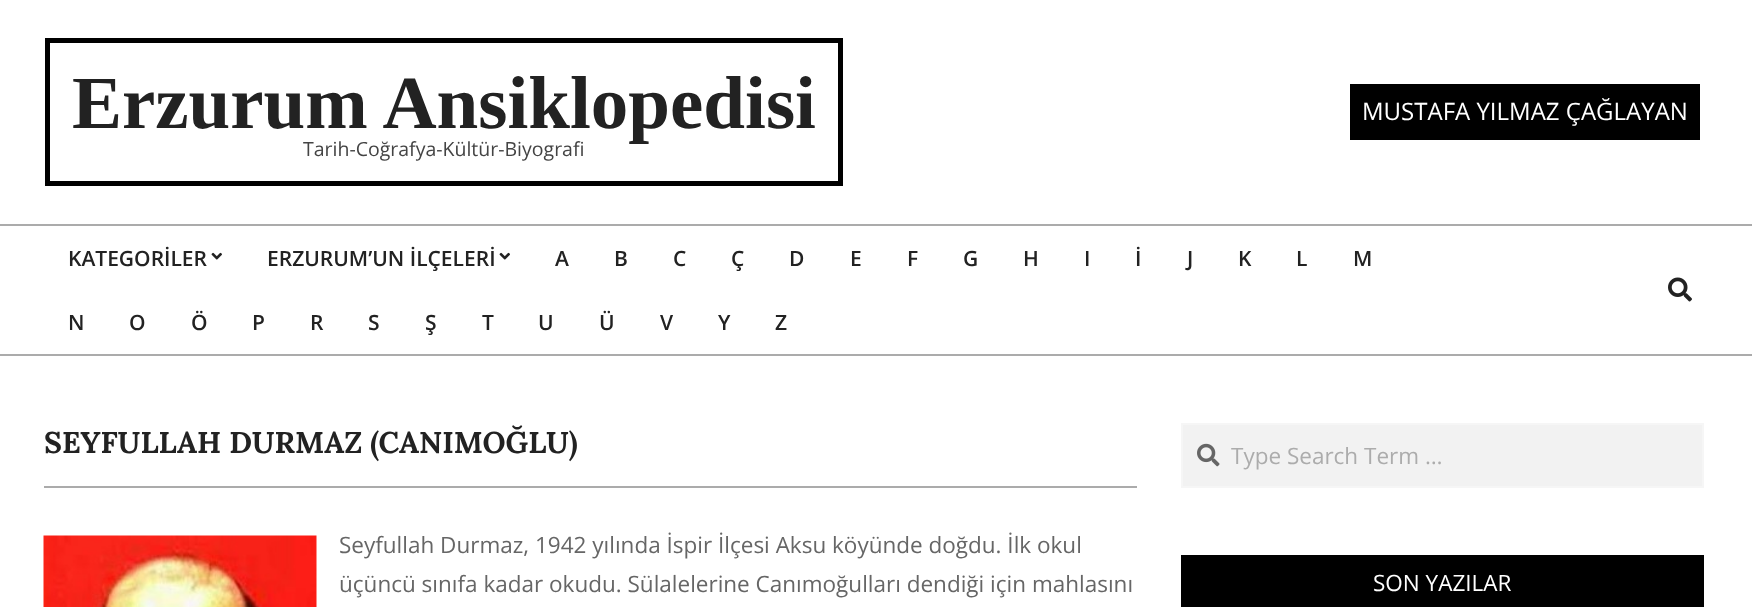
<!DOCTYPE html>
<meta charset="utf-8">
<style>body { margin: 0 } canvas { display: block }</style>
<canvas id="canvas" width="1752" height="607"></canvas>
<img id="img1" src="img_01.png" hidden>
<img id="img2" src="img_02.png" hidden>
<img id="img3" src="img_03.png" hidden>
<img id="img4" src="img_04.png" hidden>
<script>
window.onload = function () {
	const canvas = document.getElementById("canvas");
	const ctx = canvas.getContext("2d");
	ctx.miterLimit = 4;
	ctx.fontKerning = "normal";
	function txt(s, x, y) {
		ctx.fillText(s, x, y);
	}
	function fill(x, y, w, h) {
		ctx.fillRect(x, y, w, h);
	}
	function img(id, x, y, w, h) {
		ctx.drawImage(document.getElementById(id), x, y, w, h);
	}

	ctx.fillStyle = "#FFFFFF";
	fill(0, 0, 1752, 607);
	ctx.fillStyle = "#ABABAB";
	fill(0, 224, 1752, 2);
	ctx.strokeStyle = "#000000";
	ctx.lineWidth = 5;
	ctx.strokeRect(47.5, 40.5, 793, 143);
	ctx.fillStyle = "#000000";
	fill(1350, 84, 350, 56);
	ctx.fillStyle = "#ABABAB";
	fill(0, 354, 1752, 2);
	img("img1", 211, 252, 11, 8);
	img("img1", 499, 252, 11, 8);
	img("img2", 1668, 277, 24, 25);
	fill(44, 486, 1093, 2);
	img("img3", 43, 535, 274, 72);
	ctx.fillStyle = "#F2F2F2";
	ctx.beginPath();
	ctx.rect(1182, 424, 521, 63);
	ctx.fill();
	ctx.strokeStyle = "#F6F6F6";
	ctx.lineWidth = 2;
	ctx.stroke();
	img("img4", 1197, 443, 23, 24);
	ctx.fillStyle = "#000000";
	fill(1181, 555, 523, 52);
	ctx.font = "bold 75px Liberation Serif";
	ctx.fillStyle = "#222222";
	txt("Erzurum Ansiklopedisi", 72, 128);
	ctx.font = "19.5px Open Sans";
	ctx.fillStyle = "#444444";
	txt("Tarih-Coğrafya-Kültür-Biyografi", 303, 156);
	ctx.font = "24px Open Sans";
	ctx.fillStyle = "#FFFFFF";
	txt("MUSTAFA YILMAZ ÇAĞLAYAN", 1362, 120);
	ctx.font = "600 21px Open Sans";
	ctx.fillStyle = "#222222";
	txt("KATEGORİLER", 68, 266);
	txt("ERZURUM’UN İLÇELERİ", 267, 266);
	txt("A", 555, 266);
	txt("B", 614, 266);
	txt("C", 673, 266);
	txt("Ç", 731, 266);
	txt("D", 789, 266);
	txt("E", 850, 266);
	txt("F", 907, 266);
	txt("G", 963, 266);
	txt("H", 1023, 266);
	txt("I", 1084, 266);
	txt("İ", 1135, 266);
	txt("J", 1187, 266);
	txt("K", 1238, 266);
	txt("L", 1296, 266);
	txt("M", 1353, 266);
	txt("N", 68, 330);
	txt("O", 129, 330);
	txt("Ö", 191, 330);
	txt("P", 252, 330);
	txt("R", 310, 330);
	txt("S", 368, 330);
	txt("Ş", 425, 330);
	txt("T", 482, 330);
	txt("U", 538, 330);
	txt("Ü", 599, 330);
	txt("V", 660, 330);
	txt("Y", 718, 330);
	txt("Z", 775, 330);
	ctx.font = "bold 30px Lora";
	txt("SEYFULLAH DURMAZ (CANIMOĞLU)", 44, 453);
	ctx.font = "22.5px Open Sans";
	ctx.fillStyle = "#666666";
	txt("Seyfullah Durmaz, 1942 yılında İspir İlçesi Aksu köyünde doğdu. İlk okul", 339, 553);
	txt("üçüncü sınıfa kadar okudu. Sülalelerine Canımoğulları dendiği için mahlasını", 339, 592);
	ctx.fillStyle = "#ACACAC";
	txt("Type Search Term …", 1231, 464);
	ctx.fillStyle = "#FFFFFF";
	txt("SON YAZILAR", 1373, 591);
};
</script>
